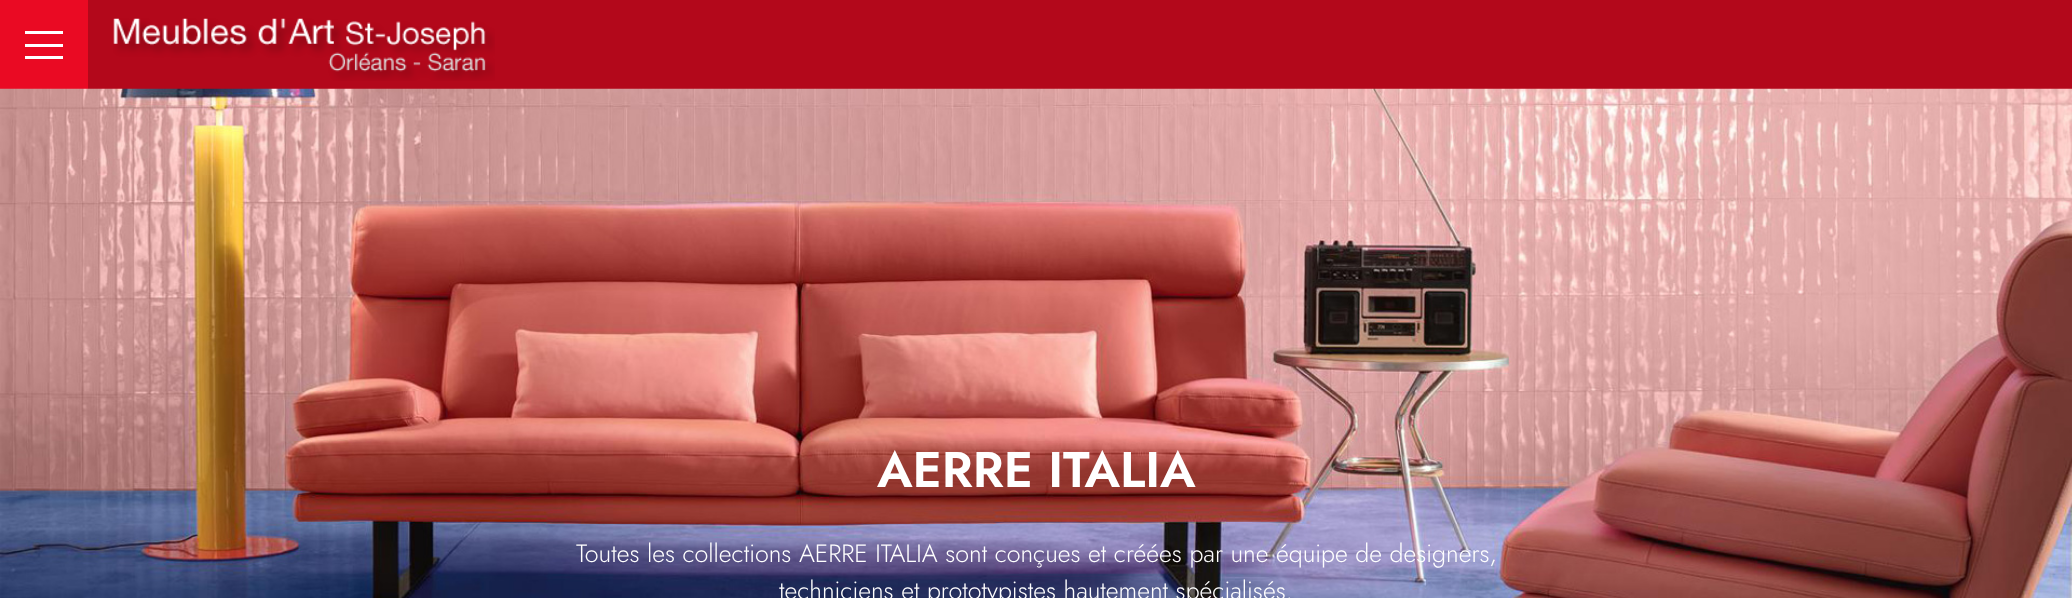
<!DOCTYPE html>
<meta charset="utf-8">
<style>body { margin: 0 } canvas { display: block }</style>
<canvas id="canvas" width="2072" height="598"></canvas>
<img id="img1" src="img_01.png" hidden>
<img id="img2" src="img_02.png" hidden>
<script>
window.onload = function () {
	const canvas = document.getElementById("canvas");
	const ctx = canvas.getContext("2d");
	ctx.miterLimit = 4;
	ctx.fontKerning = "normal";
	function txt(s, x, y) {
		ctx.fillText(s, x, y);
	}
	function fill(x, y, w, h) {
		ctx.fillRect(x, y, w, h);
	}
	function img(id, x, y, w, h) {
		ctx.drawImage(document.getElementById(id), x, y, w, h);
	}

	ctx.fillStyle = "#B3081B";
	fill(0, 0, 2072, 598);
	ctx.fillStyle = "#EA0A23";
	fill(0, 0, 88, 89);
	ctx.fillStyle = "#FFFFFF";
	fill(25, 31, 38, 3);
	fill(25, 44, 38, 3);
	fill(25, 56, 38, 3);
	img("img1", 113, 18, 382, 63);
	img("img2", 0, 88, 2072, 510);
	ctx.font = "600 50px Jost";
	txt("AERRE ITALIA", 877, 487);
	ctx.font = "300 25px Jost";
	txt("Toutes les collections AERRE ITALIA sont conçues et créées par une équipe de designers,", 576, 562);
	txt("techniciens et prototypistes hautement spécialisés.", 779, 599);
};
</script>
